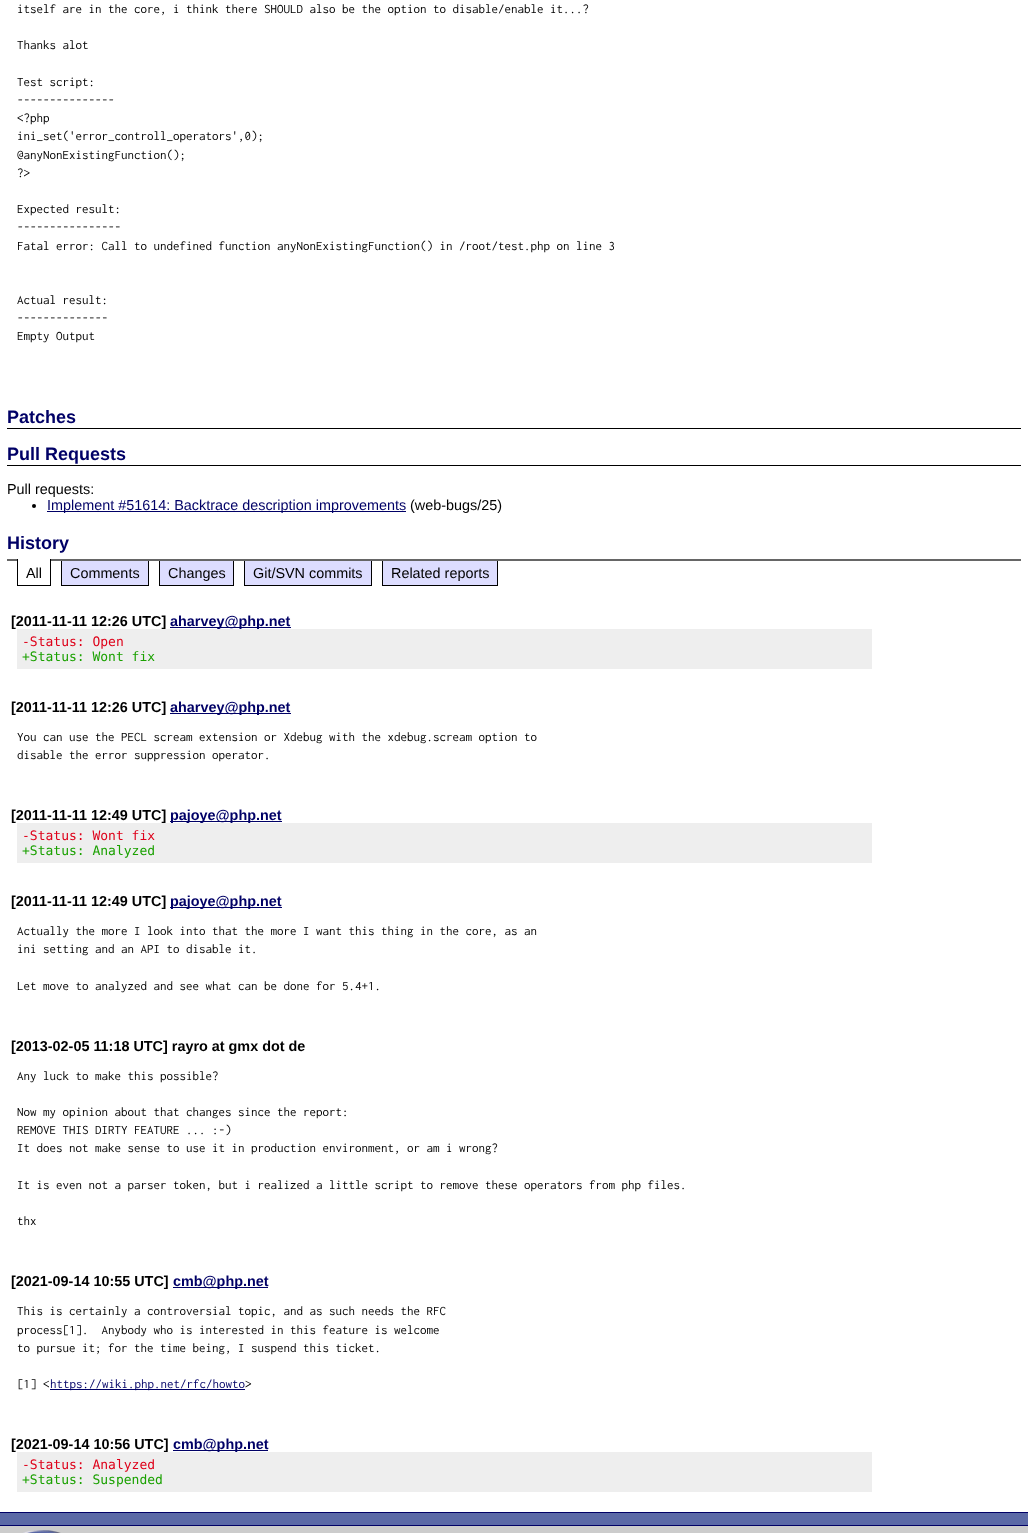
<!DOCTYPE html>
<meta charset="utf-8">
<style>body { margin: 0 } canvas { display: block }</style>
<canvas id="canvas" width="1028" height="1533"></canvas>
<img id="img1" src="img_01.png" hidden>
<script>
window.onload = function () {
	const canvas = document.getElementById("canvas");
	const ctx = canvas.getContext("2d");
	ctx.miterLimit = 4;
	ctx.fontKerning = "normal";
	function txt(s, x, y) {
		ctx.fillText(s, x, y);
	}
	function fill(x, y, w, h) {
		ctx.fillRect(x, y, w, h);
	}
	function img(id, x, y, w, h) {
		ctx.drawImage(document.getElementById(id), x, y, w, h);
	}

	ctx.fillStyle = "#FFFFFF";
	fill(0, 0, 1028, 1533);
	ctx.fillStyle = "#000000";
	fill(7, 428, 1014, 1);
	fill(7, 465, 1014, 1);
	ctx.beginPath();
	ctx.arc(34, 506, 2, 0, Math.PI * 2);
	ctx.fill();
	ctx.fillStyle = "#000066";
	fill(47, 511, 359, 1);
	ctx.fillStyle = "#666666";
	fill(7, 559, 1014, 2);
	ctx.fillStyle = "#FFFFFF";
	fill(18, 559, 32, 2);
	ctx.fillStyle = "#000000";
	fill(50, 559, 1, 27);
	fill(17, 585, 34, 1);
	fill(17, 559, 1, 27);
	ctx.fillStyle = "#DDDDFF";
	fill(62, 561, 86, 24);
	ctx.fillStyle = "#000000";
	fill(148, 561, 1, 25);
	fill(61, 585, 88, 1);
	fill(61, 561, 1, 25);
	ctx.fillStyle = "#DDDDFF";
	fill(160, 561, 73, 24);
	ctx.fillStyle = "#000000";
	fill(233, 561, 1, 25);
	fill(159, 585, 75, 1);
	fill(159, 561, 1, 25);
	ctx.fillStyle = "#DDDDFF";
	fill(245, 561, 126, 24);
	ctx.fillStyle = "#000000";
	fill(371, 561, 1, 25);
	fill(244, 585, 128, 1);
	fill(244, 561, 1, 25);
	ctx.fillStyle = "#DDDDFF";
	fill(383, 561, 114, 24);
	ctx.fillStyle = "#000000";
	fill(497, 561, 1, 25);
	fill(382, 585, 116, 1);
	fill(382, 561, 1, 25);
	ctx.fillStyle = "#000066";
	fill(170, 627, 121, 1);
	ctx.fillStyle = "#EEEEEE";
	fill(17, 629, 855, 40);
	ctx.fillStyle = "#000066";
	fill(170, 713, 121, 1);
	fill(170, 821, 112, 1);
	ctx.fillStyle = "#EEEEEE";
	fill(17, 823, 855, 40);
	ctx.fillStyle = "#000066";
	fill(170, 907, 112, 1);
	fill(173, 1287, 95, 1);
	fill(50, 1389, 195, 1);
	fill(173, 1450, 95, 1);
	ctx.fillStyle = "#EEEEEE";
	fill(17, 1452, 855, 40);
	ctx.fillStyle = "#5B69A6";
	fill(0, 1513, 1028, 12);
	ctx.fillStyle = "#000066";
	fill(0, 1512, 1028, 1);
	fill(0, 1525, 1028, 1);
	ctx.fillStyle = "#CCCCCC";
	fill(0, 1526, 1028, 7);
	img("img1", 23, 1530, 38, 3);
	ctx.font = "13px Inconsolata";
	ctx.fillStyle = "#000000";
	txt("itself are in the core, i think there SHOULD also be the option to disable/enable it...?", 17, 13);
	txt("Thanks alot", 17, 49);
	txt("Test script:", 17, 86);
	txt("---------------", 17, 104);
	txt("<?php", 17, 122);
	txt("ini_set('error_controll_operators',0);", 17, 140);
	txt("@anyNonExistingFunction();", 17, 159);
	txt("?>", 17, 177);
	txt("Expected result:", 17, 213);
	txt("----------------", 17, 231);
	txt("Fatal error: Call to undefined function anyNonExistingFunction() in /root/test.php on line 3", 17, 250);
	txt("Actual result:", 17, 304);
	txt("--------------", 17, 322);
	txt("Empty Output", 17, 340);
	ctx.font = "bold 18px Liberation Sans";
	ctx.fillStyle = "#000066";
	txt("Patches", 7, 423);
	txt("Pull Requests", 7, 460);
	ctx.font = "14.4px Liberation Sans";
	ctx.fillStyle = "#000000";
	txt("Pull requests:", 7, 494);
	ctx.fillStyle = "#000066";
	txt("Implement #51614: Backtrace description improvements", 47, 510);
	ctx.fillStyle = "#000000";
	txt("(web-bugs/25)", 410, 510);
	ctx.font = "bold 18px Liberation Sans";
	ctx.fillStyle = "#000066";
	txt("History", 7, 549);
	ctx.font = "14.4px Liberation Sans";
	ctx.fillStyle = "#000000";
	txt("All", 26, 578);
	txt("Comments", 70, 578);
	txt("Changes", 168, 578);
	txt("Git/SVN commits", 253, 578);
	txt("Related reports", 391, 578);
	ctx.font = "bold 14.4px Liberation Sans";
	txt("[2011-11-11 12:26 UTC]", 11, 626);
	ctx.fillStyle = "#000066";
	txt("aharvey@php.net", 170, 626);
	ctx.font = "13px DejaVu Sans Mono";
	ctx.fillStyle = "#DE0019";
	txt("-Status: Open", 22, 646);
	ctx.fillStyle = "#1AA100";
	txt("+Status: Wont fix", 22, 661);
	ctx.font = "bold 14.4px Liberation Sans";
	ctx.fillStyle = "#000000";
	txt("[2011-11-11 12:26 UTC]", 11, 712);
	ctx.fillStyle = "#000066";
	txt("aharvey@php.net", 170, 712);
	ctx.font = "13px Inconsolata";
	ctx.fillStyle = "#000000";
	txt("You can use the PECL scream extension or Xdebug with the xdebug.scream option to", 17, 741);
	txt("disable the error suppression operator.", 17, 759);
	ctx.font = "bold 14.4px Liberation Sans";
	txt("[2011-11-11 12:49 UTC]", 11, 820);
	ctx.fillStyle = "#000066";
	txt("pajoye@php.net", 170, 820);
	ctx.font = "13px DejaVu Sans Mono";
	ctx.fillStyle = "#DE0019";
	txt("-Status: Wont fix", 22, 840);
	ctx.fillStyle = "#1AA100";
	txt("+Status: Analyzed", 22, 855);
	ctx.font = "bold 14.4px Liberation Sans";
	ctx.fillStyle = "#000000";
	txt("[2011-11-11 12:49 UTC]", 11, 906);
	ctx.fillStyle = "#000066";
	txt("pajoye@php.net", 170, 906);
	ctx.font = "13px Inconsolata";
	ctx.fillStyle = "#000000";
	txt("Actually the more I look into that the more I want this thing in the core, as an", 17, 935);
	txt("ini setting and an API to disable it.", 17, 953);
	txt("Let move to analyzed and see what can be done for 5.4+1.", 17, 990);
	ctx.font = "bold 14.4px Liberation Sans";
	txt("[2013-02-05 11:18 UTC] rayro at gmx dot de", 11, 1051);
	ctx.font = "13px Inconsolata";
	txt("Any luck to make this possible?", 17, 1080);
	txt("Now my opinion about that changes since the report:", 17, 1116);
	txt("REMOVE THIS DIRTY FEATURE ... :-)", 17, 1134);
	txt("It does not make sense to use it in production environment, or am i wrong?", 17, 1152);
	txt("It is even not a parser token, but i realized a little script to remove these operators from php files.", 17, 1189);
	txt("thx", 17, 1225);
	ctx.font = "bold 14.4px Liberation Sans";
	txt("[2021-09-14 10:55 UTC]", 11, 1286);
	ctx.fillStyle = "#000066";
	txt("cmb@php.net", 173, 1286);
	ctx.font = "13px Inconsolata";
	ctx.fillStyle = "#000000";
	txt("This is certainly a controversial topic, and as such needs the RFC", 17, 1315);
	txt("process[1].  Anybody who is interested in this feature is welcome", 17, 1334);
	txt("to pursue it; for the time being, I suspend this ticket.", 17, 1352);
	txt("[1] <", 17, 1388);
	ctx.fillStyle = "#000066";
	txt("https://wiki.php.net/rfc/howto", 50, 1388);
	ctx.fillStyle = "#000000";
	txt(">", 245, 1388);
	ctx.font = "bold 14.4px Liberation Sans";
	txt("[2021-09-14 10:56 UTC]", 11, 1449);
	ctx.fillStyle = "#000066";
	txt("cmb@php.net", 173, 1449);
	ctx.font = "13px DejaVu Sans Mono";
	ctx.fillStyle = "#DE0019";
	txt("-Status: Analyzed", 22, 1469);
	ctx.fillStyle = "#1AA100";
	txt("+Status: Suspended", 22, 1484);
};
</script>
